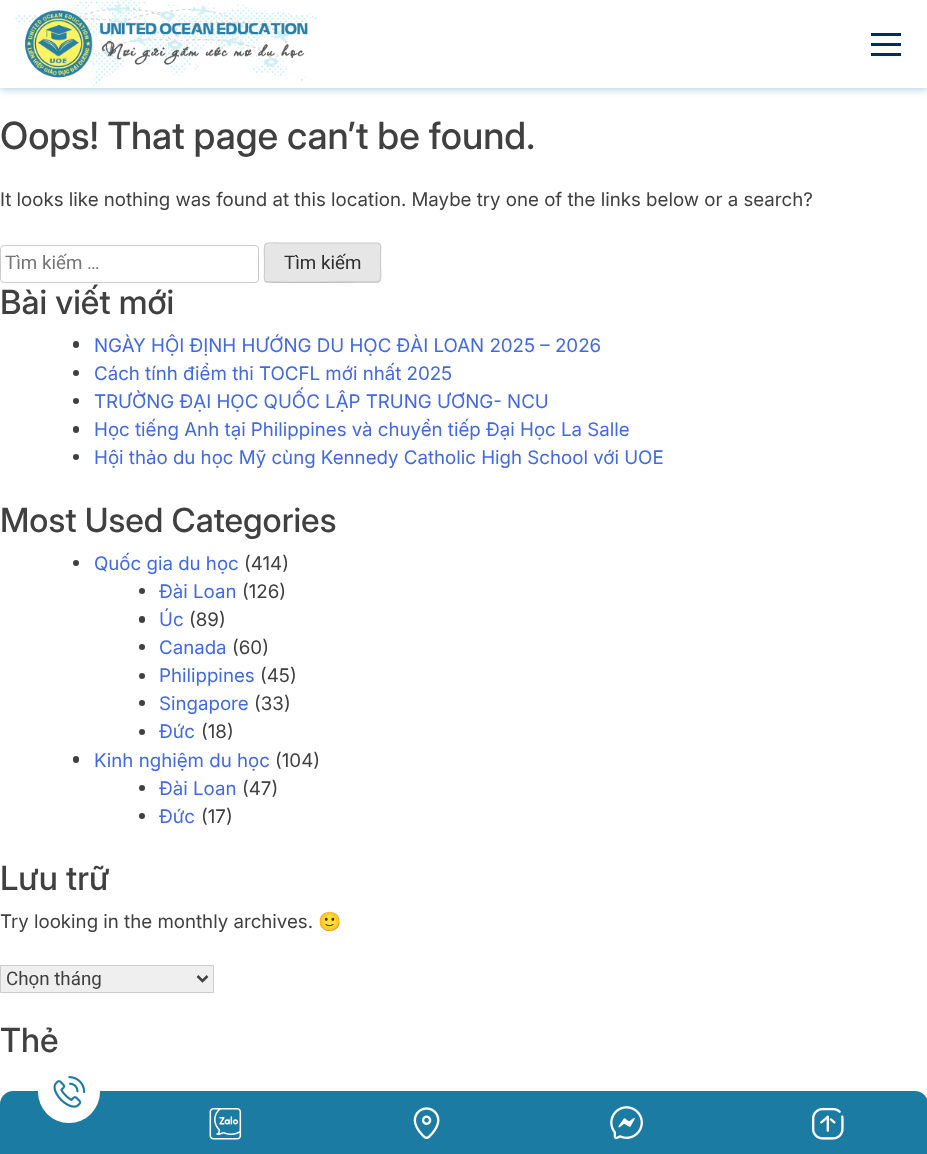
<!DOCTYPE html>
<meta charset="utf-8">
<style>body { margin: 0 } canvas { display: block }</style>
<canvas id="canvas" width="927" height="1154"></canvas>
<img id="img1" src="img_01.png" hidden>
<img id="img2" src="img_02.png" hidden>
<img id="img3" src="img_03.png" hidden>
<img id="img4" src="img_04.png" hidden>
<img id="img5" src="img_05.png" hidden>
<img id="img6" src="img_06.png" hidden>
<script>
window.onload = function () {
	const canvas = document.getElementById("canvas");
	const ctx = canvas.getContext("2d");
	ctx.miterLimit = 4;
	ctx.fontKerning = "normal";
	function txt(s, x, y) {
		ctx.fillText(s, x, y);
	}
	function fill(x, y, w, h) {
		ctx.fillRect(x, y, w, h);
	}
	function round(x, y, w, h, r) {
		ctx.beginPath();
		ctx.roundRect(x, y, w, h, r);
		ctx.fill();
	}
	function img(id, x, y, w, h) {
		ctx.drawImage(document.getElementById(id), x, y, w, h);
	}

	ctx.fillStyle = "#FFFFFF";
	fill(0, 0, 927, 1154);
	ctx.save();
	ctx.beginPath();
	ctx.moveTo(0, 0);
	ctx.lineTo(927, 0);
	ctx.lineTo(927, 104);
	ctx.lineTo(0, 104);
	ctx.closePath();
	ctx.moveTo(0, 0);
	ctx.lineTo(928, 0);
	ctx.lineTo(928, 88);
	ctx.lineTo(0, 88);
	ctx.closePath();
	ctx.clip("evenodd");
	ctx.fillStyle = "rgba(28, 123, 162, 0.47)";
	ctx.filter = "blur(5px)";
	ctx.beginPath();
	ctx.rect(0, 0, 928, 88);
	ctx.fill();
	ctx.filter = "none";
	ctx.restore();
	img("img1", 15, 0, 302, 87);
	ctx.fillStyle = "#002E5B";
	fill(871, 33, 30, 3);
	fill(871, 43, 30, 3);
	fill(871, 53, 30, 3);
	ctx.beginPath();
	ctx.roundRect(0.5, 245.5, 258, 37, 3.5);
	ctx.strokeStyle = "#CCCCCC";
	ctx.stroke();
	ctx.fillStyle = "#E6E6E6";
	round(264, 243, 117, 40, 4);
	ctx.beginPath();
	ctx.moveTo(379.5, 281);
	ctx.lineTo(377.5, 282);
	ctx.lineTo(359, 282);
	ctx.bezierCurveTo(349.5, 282, 268, 283, 266, 281.5);
	ctx.lineTo(265.5, 281);
	ctx.strokeStyle = "#BBBBBB";
	ctx.lineWidth = 1.2;
	ctx.stroke();
	ctx.beginPath();
	ctx.moveTo(265.5, 281);
	ctx.bezierCurveTo(263.5, 279, 264.5, 275, 264.5, 273.5);
	ctx.lineTo(264.5, 262.5);
	ctx.bezierCurveTo(264.5, 238.5, 260.5, 243, 286, 243);
	ctx.lineTo(377.5, 243);
	ctx.bezierCurveTo(382, 243, 380.5, 249.5, 380.5, 251.5);
	ctx.lineTo(380.5, 268);
	ctx.bezierCurveTo(380.5, 270.5, 382, 279, 379.5, 281);
	ctx.strokeStyle = "#CCCCCC";
	ctx.stroke();
	ctx.fillStyle = "#404040";
	round(73, 341, 6, 7, 3);
	ctx.beginPath();
	ctx.arc(76, 373, 3, 0, Math.PI * 2);
	ctx.fill();
	ctx.beginPath();
	ctx.arc(76, 401, 3, 0, Math.PI * 2);
	ctx.fill();
	round(73, 426, 6, 7, 3);
	ctx.beginPath();
	ctx.arc(76, 457, 3, 0, Math.PI * 2);
	ctx.fill();
	ctx.beginPath();
	ctx.arc(76, 563, 3, 0, Math.PI * 2);
	ctx.fill();
	ctx.beginPath();
	ctx.arc(142, 591, 3, 0, Math.PI * 2);
	ctx.fill();
	round(139, 616, 6, 7, 3);
	ctx.beginPath();
	ctx.arc(142, 647, 3, 0, Math.PI * 2);
	ctx.fill();
	ctx.beginPath();
	ctx.arc(142, 676, 3, 0, Math.PI * 2);
	ctx.fill();
	ctx.beginPath();
	ctx.arc(142, 703, 3, 0, Math.PI * 2);
	ctx.fill();
	ctx.beginPath();
	ctx.arc(142, 732, 3, 0, Math.PI * 2);
	ctx.fill();
	round(73, 756, 6, 7, 3);
	ctx.beginPath();
	ctx.arc(142, 788, 3, 0, Math.PI * 2);
	ctx.fill();
	ctx.beginPath();
	ctx.arc(142, 816, 3, 0, Math.PI * 2);
	ctx.fill();
	ctx.fillStyle = "#EFEFEF";
	ctx.beginPath();
	ctx.rect(0.5, 965.5, 213, 27);
	ctx.fill();
	ctx.lineWidth = 1;
	ctx.stroke();
	ctx.beginPath();
	ctx.moveTo(197.5, 976);
	ctx.lineTo(202.5, 981);
	ctx.lineTo(207.5, 976);
	ctx.strokeStyle = "#404040";
	ctx.lineWidth = 2.5;
	ctx.stroke();
	ctx.fillStyle = "#1C7BA2";
	ctx.beginPath();
	ctx.moveTo(13, 1091);
	ctx.lineTo(915, 1091);
	ctx.bezierCurveTo(922, 1091, 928, 1097, 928, 1104);
	ctx.lineTo(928, 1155);
	ctx.lineTo(0, 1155);
	ctx.lineTo(0, 1104);
	ctx.bezierCurveTo(0, 1097, 6, 1091, 13, 1091);
	ctx.closePath();
	ctx.fill();
	ctx.fillStyle = "#FFFFFF";
	round(38, 1060, 62, 63, 31);
	img("img2", 53, 1076, 33, 32);
	img("img3", 209, 1108, 33, 32);
	img("img4", 413, 1107, 27, 32);
	img("img5", 610, 1106, 33, 34);
	img("img6", 812, 1107, 32, 33);
	ctx.font = "500 37.5px Inter";
	ctx.fillStyle = "#404040";
	txt("Oops! That page can’t be found.", 0, 149);
	ctx.font = "18.75px Inter";
	txt("It looks like nothing was found at this location. Maybe try one of the links below or a search?", 0, 206);
	ctx.font = "18.75px Roboto";
	ctx.fillStyle = "#757575";
	txt("Tìm kiếm …", 5, 269);
	ctx.fillStyle = "#2E2E2E";
	txt("Tìm kiếm", 284, 269);
	ctx.font = "500 33.25px 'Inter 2'";
	ctx.fillStyle = "#404040";
	txt("Bài viết mới", 0, 314);
	ctx.font = "18.75px Inter";
	ctx.fillStyle = "#4169E1";
	txt("NGÀY HỘI ĐỊNH HƯỚNG DU HỌC ĐÀI LOAN 2025 – 2026", 94, 352);
	txt("Cách tính điểm thi TOCFL mới nhất 2025", 94, 380);
	txt("TRƯỜNG ĐẠI HỌC QUỐC LẬP TRUNG ƯƠNG- NCU", 94, 408);
	txt("Học tiếng Anh tại Philippines và chuyển tiếp Đại Học La Salle", 94, 436);
	txt("Hội thảo du học Mỹ cùng Kennedy Catholic High School với UOE", 94, 464);
	ctx.font = "500 33.25px 'Inter 2'";
	ctx.fillStyle = "#404040";
	txt("Most Used Categories", 0, 532);
	ctx.font = "18.75px Inter";
	ctx.fillStyle = "#4169E1";
	txt("Quốc gia du học", 94, 570);
	ctx.fillStyle = "#404040";
	txt("(414)", 244, 570);
	ctx.fillStyle = "#4169E1";
	txt("Đài Loan", 159, 598);
	ctx.fillStyle = "#404040";
	txt("(126)", 242, 598);
	ctx.fillStyle = "#4169E1";
	txt("Úc", 159, 626);
	ctx.fillStyle = "#404040";
	txt("(89)", 189, 626);
	ctx.fillStyle = "#4169E1";
	txt("Canada", 159, 654);
	ctx.fillStyle = "#404040";
	txt("(60)", 232, 654);
	ctx.fillStyle = "#4169E1";
	txt("Philippines", 159, 682);
	ctx.fillStyle = "#404040";
	txt("(45)", 260, 682);
	ctx.fillStyle = "#4169E1";
	txt("Singapore", 159, 710);
	ctx.fillStyle = "#404040";
	txt("(33)", 254, 710);
	ctx.fillStyle = "#4169E1";
	txt("Đức", 159, 738);
	ctx.fillStyle = "#404040";
	txt("(18)", 201, 738);
	ctx.fillStyle = "#4169E1";
	txt("Kinh nghiệm du học", 94, 767);
	ctx.fillStyle = "#404040";
	txt("(104)", 275, 767);
	ctx.fillStyle = "#4169E1";
	txt("Đài Loan", 159, 795);
	ctx.fillStyle = "#404040";
	txt("(47)", 242, 795);
	ctx.fillStyle = "#4169E1";
	txt("Đức", 159, 823);
	ctx.fillStyle = "#404040";
	txt("(17)", 201, 823);
	ctx.font = "500 33.25px 'Inter 2'";
	txt("Lưu trữ", 0, 890);
	ctx.font = "18.75px Inter";
	txt("Try looking in the monthly archives.", 0, 928);
	ctx.font = "18.75px Noto Color Emoji";
	txt("🙂", 318, 928);
	ctx.font = "18.75px Roboto";
	txt("Chọn tháng", 6, 985);
	ctx.font = "500 33.25px 'Inter 2'";
	txt("Thẻ", 0, 1052);
};
</script>
